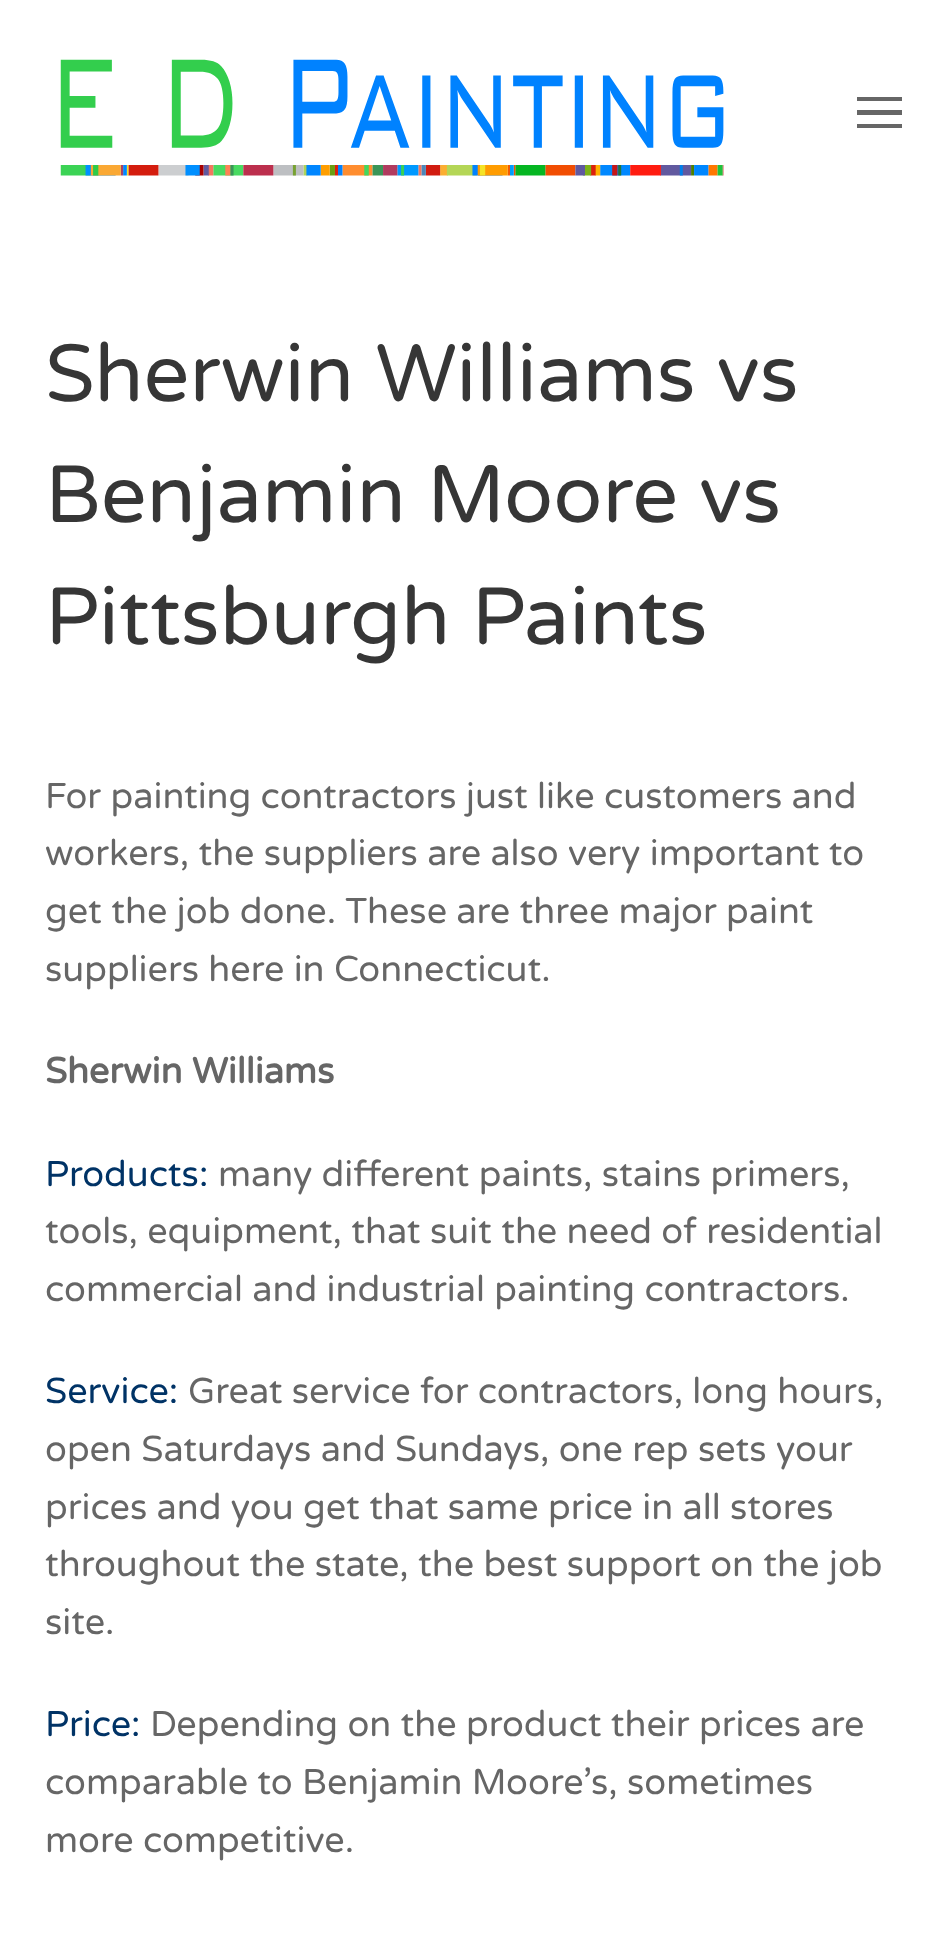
<!DOCTYPE html>
<meta charset="utf-8">
<style>body { margin: 0 } canvas { display: block }</style>
<canvas id="canvas" width="947" height="1934"></canvas>
<img id="img1" src="img_01.png" hidden>
<script>
window.onload = function () {
	const canvas = document.getElementById("canvas");
	const ctx = canvas.getContext("2d");
	ctx.miterLimit = 4;
	ctx.fontKerning = "normal";
	function txt(s, x, y) {
		ctx.fillText(s, x, y);
	}
	function fill(x, y, w, h) {
		ctx.fillRect(x, y, w, h);
	}
	function img(id, x, y, w, h) {
		ctx.drawImage(document.getElementById(id), x, y, w, h);
	}

	ctx.fillStyle = "#FFFFFF";
	fill(0, 0, 947, 1934);
	img("img1", 60, 59, 664, 117);
	ctx.fillStyle = "#666666";
	fill(857, 97, 45, 4);
	fill(857, 110, 45, 5);
	fill(857, 124, 45, 4);
	ctx.font = "81px Varela Round";
	ctx.fillStyle = "#363636";
	txt("Sherwin Williams vs", 45, 401);
	txt("Benjamin Moore vs", 45, 522);
	txt("Pittsburgh Paints", 45, 644);
	ctx.font = "36px Varela Round";
	ctx.fillStyle = "#666666";
	txt("For painting contractors just like customers and", 45, 808);
	txt("workers, the suppliers are also very important to", 45, 865);
	txt("get the job done. These are three major paint", 45, 923);
	txt("suppliers here in Connecticut.", 45, 981);
	ctx.font = "bold 36px Varela Round";
	txt("Sherwin Williams", 45, 1083);
	ctx.font = "36px Varela Round";
	ctx.fillStyle = "#003366";
	txt("Products:", 45, 1186);
	ctx.fillStyle = "#666666";
	txt("many different paints, stains primers,", 218, 1186);
	txt("tools, equipment, that suit the need of residential", 45, 1243);
	txt("commercial and industrial painting contractors.", 45, 1301);
	ctx.fillStyle = "#003366";
	txt("Service:", 45, 1403);
	ctx.fillStyle = "#666666";
	txt("Great service for contractors, long hours,", 188, 1403);
	txt("open Saturdays and Sundays, one rep sets your", 45, 1461);
	txt("prices and you get that same price in all stores", 45, 1519);
	txt("throughout the state, the best support on the job", 45, 1576);
	txt("site.", 45, 1634);
	ctx.fillStyle = "#003366";
	txt("Price:", 45, 1736);
	ctx.fillStyle = "#666666";
	txt("Depending on the product their prices are", 150, 1736);
	txt("comparable to Benjamin Moore’s, sometimes", 45, 1794);
	txt("more competitive.", 45, 1852);
};
</script>
